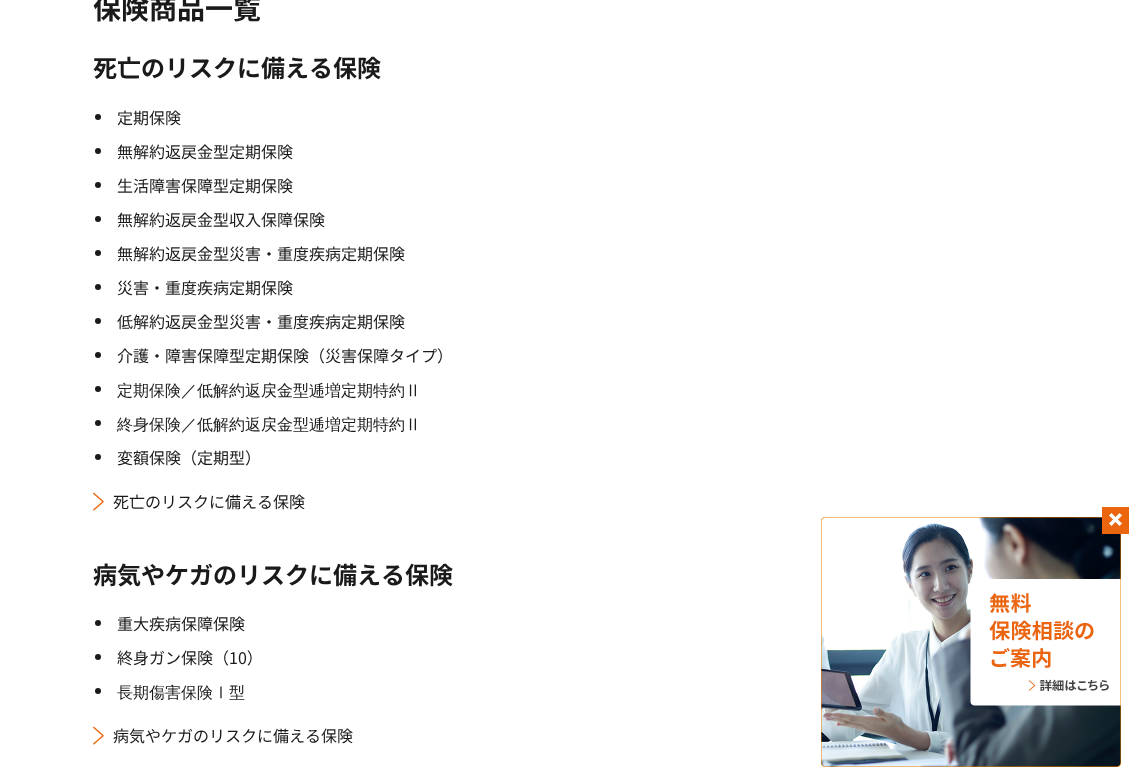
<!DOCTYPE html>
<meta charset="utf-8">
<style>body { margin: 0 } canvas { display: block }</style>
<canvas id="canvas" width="1146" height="782"></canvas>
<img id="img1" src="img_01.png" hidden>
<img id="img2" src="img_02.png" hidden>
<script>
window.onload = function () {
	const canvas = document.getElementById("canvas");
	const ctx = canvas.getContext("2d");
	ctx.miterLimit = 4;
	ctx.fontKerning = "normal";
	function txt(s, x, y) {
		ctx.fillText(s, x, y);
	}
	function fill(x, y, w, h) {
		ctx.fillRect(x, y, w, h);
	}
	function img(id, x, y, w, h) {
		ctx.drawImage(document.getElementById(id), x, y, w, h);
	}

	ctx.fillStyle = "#FFFFFF";
	fill(0, 0, 1146, 782);
	ctx.fillStyle = "#1A1A1A";
	ctx.beginPath();
	ctx.arc(98, 117, 3, 0, Math.PI * 2);
	ctx.fill();
	ctx.beginPath();
	ctx.arc(98, 151, 3, 0, Math.PI * 2);
	ctx.fill();
	ctx.beginPath();
	ctx.arc(98, 185, 3, 0, Math.PI * 2);
	ctx.fill();
	ctx.beginPath();
	ctx.arc(98, 219, 3, 0, Math.PI * 2);
	ctx.fill();
	ctx.beginPath();
	ctx.arc(98, 253, 3, 0, Math.PI * 2);
	ctx.fill();
	ctx.beginPath();
	ctx.arc(98, 287, 3, 0, Math.PI * 2);
	ctx.fill();
	ctx.beginPath();
	ctx.arc(98, 321, 3, 0, Math.PI * 2);
	ctx.fill();
	ctx.beginPath();
	ctx.arc(98, 355, 3, 0, Math.PI * 2);
	ctx.fill();
	ctx.beginPath();
	ctx.arc(98, 389, 3, 0, Math.PI * 2);
	ctx.fill();
	ctx.beginPath();
	ctx.arc(98, 423, 3, 0, Math.PI * 2);
	ctx.fill();
	ctx.beginPath();
	ctx.arc(98, 457, 3, 0, Math.PI * 2);
	ctx.fill();
	img("img1", 93, 492, 11, 19);
	ctx.beginPath();
	ctx.arc(98, 623, 3, 0, Math.PI * 2);
	ctx.fill();
	ctx.beginPath();
	ctx.arc(98, 657, 3, 0, Math.PI * 2);
	ctx.fill();
	ctx.beginPath();
	ctx.arc(98, 691, 3, 0, Math.PI * 2);
	ctx.fill();
	img("img1", 93, 726, 11, 19);
	img("img2", 821, 517, 300, 250);
	ctx.fillStyle = "#EA650D";
	fill(1102, 507, 27, 27);
	ctx.fillStyle = "#FFFFFF";
	ctx.beginPath();
	ctx.moveTo(1111.5, 513);
	ctx.lineTo(1122, 523.5);
	ctx.lineTo(1119.5, 526);
	ctx.lineTo(1109, 515.5);
	ctx.closePath();
	ctx.fill();
	ctx.beginPath();
	ctx.moveTo(1122, 515.5);
	ctx.lineTo(1111.5, 526);
	ctx.lineTo(1109, 523.5);
	ctx.lineTo(1119.5, 513);
	ctx.closePath();
	ctx.fill();
	ctx.font = "bold 28px Noto Sans JP";
	ctx.fillStyle = "#1A1A1A";
	txt("保険商品一覧", 93, 19);
	ctx.font = "bold 24px Noto Sans JP";
	txt("死亡のリスクに備える保険", 93, 77);
	ctx.font = "16px Noto Sans JP";
	txt("定期保険", 117, 124);
	txt("無解約返戻金型定期保険", 117, 158);
	txt("生活障害保障型定期保険", 117, 192);
	txt("無解約返戻金型収入保障保険", 117, 226);
	txt("無解約返戻金型災害・重度疾病定期保険", 117, 260);
	txt("災害・重度疾病定期保険", 117, 294);
	txt("低解約返戻金型災害・重度疾病定期保険", 117, 328);
	txt("介護・障害保障型定期保険（災害保障タイプ）", 117, 362);
	ctx.font = "500 16px WenQuanYi Zen Hei";
	txt("定期保険／低解約返戻金型逓増定期特約Ⅱ", 117, 396);
	txt("終身保険／低解約返戻金型逓増定期特約Ⅱ", 117, 430);
	ctx.font = "16px Noto Sans JP";
	txt("変額保険（定期型）", 117, 464);
	txt("死亡のリスクに備える保険", 113, 508);
	ctx.font = "bold 24px Noto Sans JP";
	txt("病気やケガのリスクに備える保険", 93, 584);
	ctx.font = "16px Noto Sans JP";
	txt("重大疾病保障保険", 117, 630);
	txt("終身ガン保険（10）", 117, 664);
	ctx.font = "500 16px WenQuanYi Zen Hei";
	txt("長期傷害保険Ⅰ型", 117, 698);
	ctx.font = "16px Noto Sans JP";
	txt("病気やケガのリスクに備える保険", 113, 742);
};
</script>
